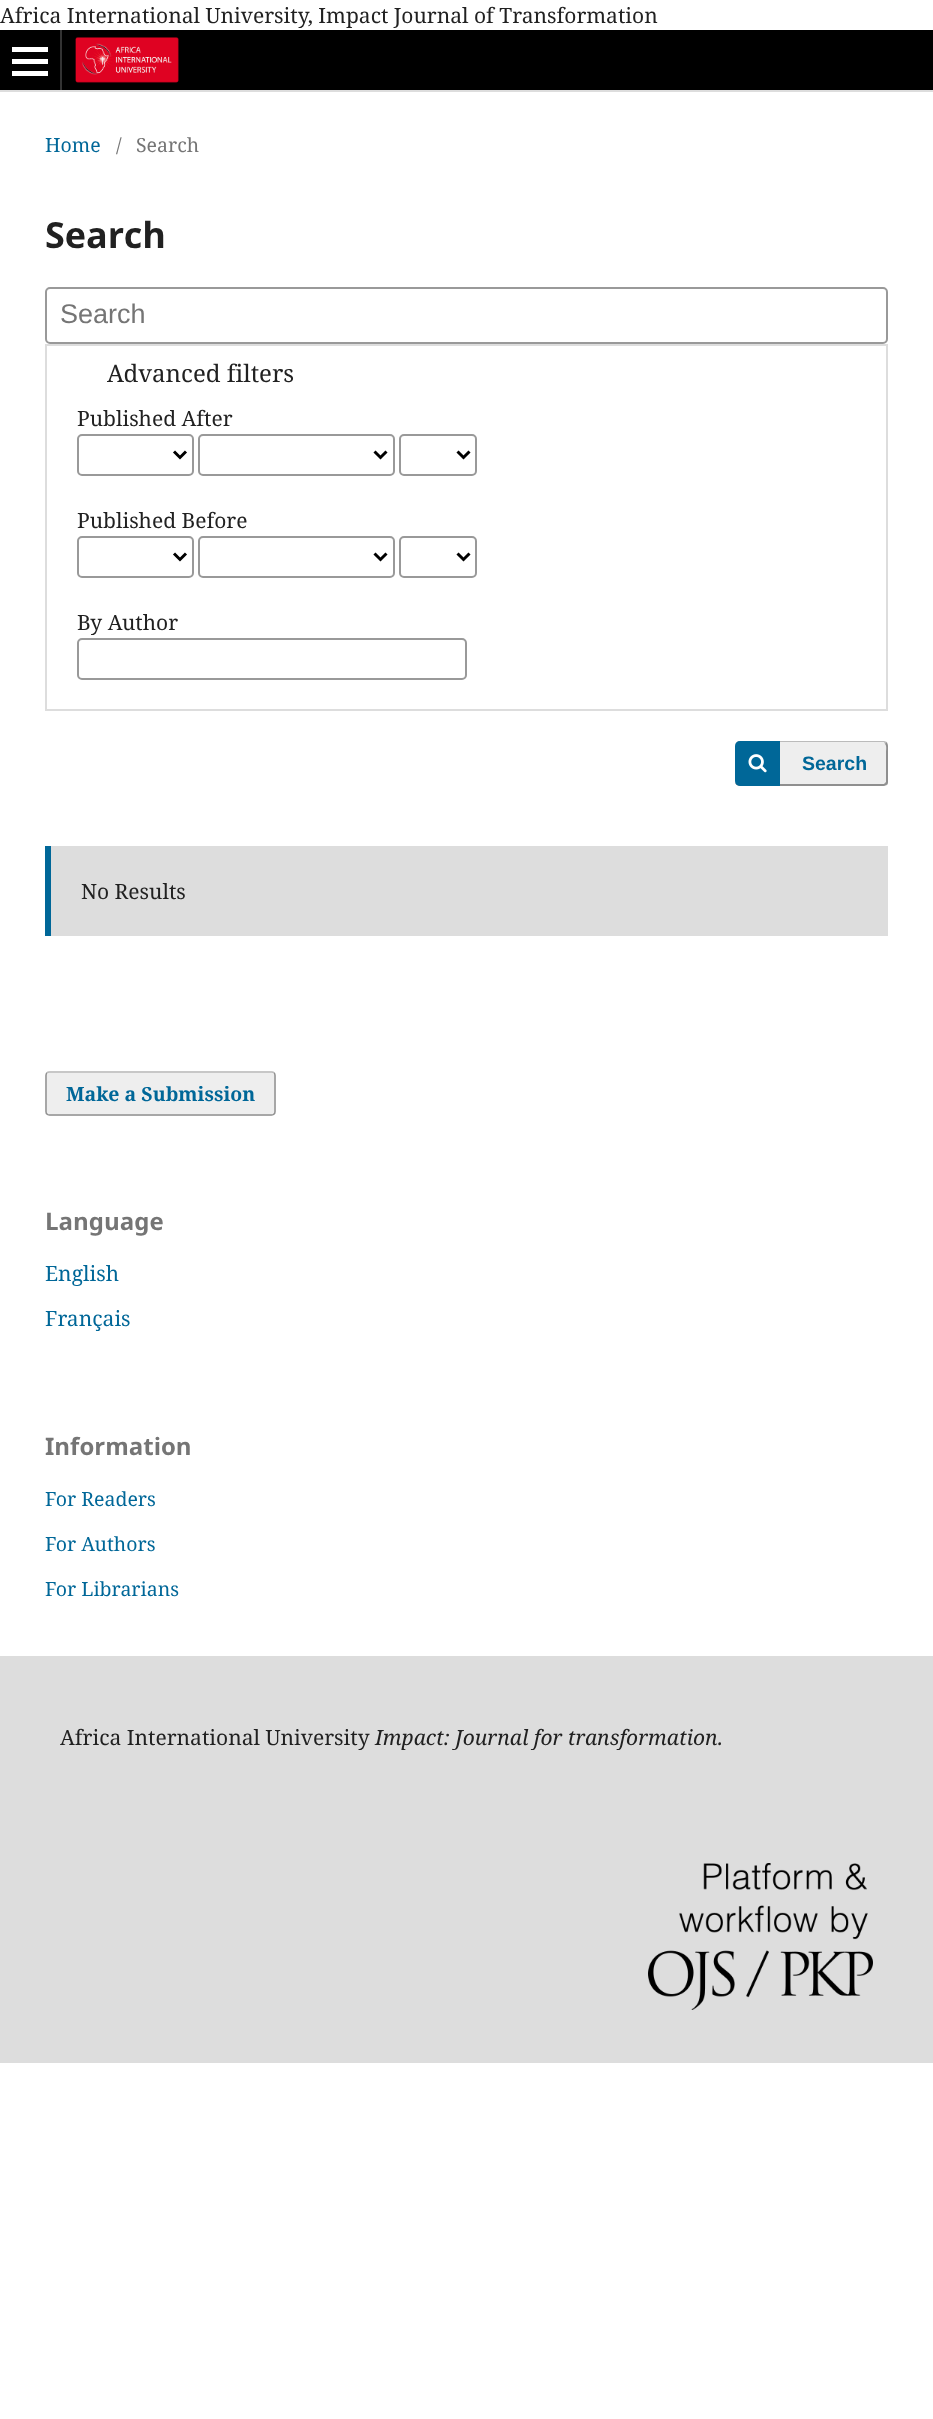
<!DOCTYPE html>
<meta charset="utf-8">
<style>body { margin: 0 } canvas { display: block }</style>
<canvas id="canvas" width="933" height="2419"></canvas>
<img id="img1" src="img_01.png" hidden>
<img id="img2" src="img_02.png" hidden>
<img id="img3" src="img_03.png" hidden>
<script>
window.onload = function () {
	const canvas = document.getElementById("canvas");
	const ctx = canvas.getContext("2d");
	ctx.miterLimit = 4;
	ctx.fontKerning = "normal";
	function txt(s, x, y) {
		ctx.fillText(s, x, y);
	}
	function fill(x, y, w, h) {
		ctx.fillRect(x, y, w, h);
	}
	function round(x, y, w, h, r) {
		ctx.beginPath();
		ctx.roundRect(x, y, w, h, r);
		ctx.fill();
	}
	function img(id, x, y, w, h) {
		ctx.drawImage(document.getElementById(id), x, y, w, h);
	}

	ctx.fillStyle = "#FFFFFF";
	fill(0, 0, 933, 2419);
	ctx.fillStyle = "#000000";
	fill(0, 30, 933, 60);
	ctx.fillStyle = "#DDDDDD";
	fill(0, 90, 933, 2);
	ctx.fillStyle = "#333333";
	fill(60, 30, 2, 60);
	ctx.fillStyle = "#FFFFFF";
	fill(12, 71, 36, 5);
	fill(12, 47, 36, 5);
	fill(12, 59, 36, 5);
	img("img1", 75, 37, 104, 46);
	ctx.beginPath();
	ctx.roundRect(46, 288, 841, 55, 4);
	ctx.strokeStyle = "#999999";
	ctx.lineWidth = 2;
	ctx.stroke();
	ctx.strokeStyle = "#DDDDDD";
	ctx.strokeRect(46, 345, 841, 365);
	ctx.beginPath();
	ctx.roundRect(78, 435, 115, 40, 4);
	ctx.strokeStyle = "#999999";
	ctx.stroke();
	ctx.beginPath();
	ctx.moveTo(174, 451.5);
	ctx.lineTo(180, 457.5);
	ctx.lineTo(186, 451.5);
	ctx.strokeStyle = "#000000";
	ctx.lineWidth = 3;
	ctx.stroke();
	ctx.beginPath();
	ctx.roundRect(199, 435, 195, 40, 4);
	ctx.strokeStyle = "#999999";
	ctx.lineWidth = 2;
	ctx.stroke();
	ctx.beginPath();
	ctx.moveTo(374.5, 451.5);
	ctx.lineTo(380.5, 457.5);
	ctx.lineTo(386.5, 451.5);
	ctx.strokeStyle = "#000000";
	ctx.lineWidth = 3;
	ctx.stroke();
	ctx.beginPath();
	ctx.roundRect(400, 435, 76, 40, 4);
	ctx.strokeStyle = "#999999";
	ctx.lineWidth = 2;
	ctx.stroke();
	ctx.beginPath();
	ctx.moveTo(457.5, 451.5);
	ctx.lineTo(463.5, 457.5);
	ctx.lineTo(469.5, 451.5);
	ctx.strokeStyle = "#000000";
	ctx.lineWidth = 3;
	ctx.stroke();
	ctx.beginPath();
	ctx.roundRect(78, 537, 115, 40, 4);
	ctx.strokeStyle = "#999999";
	ctx.lineWidth = 2;
	ctx.stroke();
	ctx.beginPath();
	ctx.moveTo(174, 553.5);
	ctx.lineTo(180, 559.5);
	ctx.lineTo(186, 553.5);
	ctx.strokeStyle = "#000000";
	ctx.lineWidth = 3;
	ctx.stroke();
	ctx.beginPath();
	ctx.roundRect(199, 537, 195, 40, 4);
	ctx.strokeStyle = "#999999";
	ctx.lineWidth = 2;
	ctx.stroke();
	ctx.beginPath();
	ctx.moveTo(374.5, 553.5);
	ctx.lineTo(380.5, 559.5);
	ctx.lineTo(386.5, 553.5);
	ctx.strokeStyle = "#000000";
	ctx.lineWidth = 3;
	ctx.stroke();
	ctx.beginPath();
	ctx.roundRect(400, 537, 76, 40, 4);
	ctx.strokeStyle = "#999999";
	ctx.lineWidth = 2;
	ctx.stroke();
	ctx.beginPath();
	ctx.moveTo(457.5, 553.5);
	ctx.lineTo(463.5, 559.5);
	ctx.lineTo(469.5, 553.5);
	ctx.strokeStyle = "#000000";
	ctx.lineWidth = 3;
	ctx.stroke();
	ctx.beginPath();
	ctx.roundRect(78, 639, 388, 40, 4);
	ctx.strokeStyle = "#999999";
	ctx.lineWidth = 2;
	ctx.stroke();
	ctx.fillStyle = "#EEEEEE";
	round(735, 741, 153, 45, 5);
	ctx.fillStyle = "#BBBBBB";
	ctx.beginPath();
	ctx.moveTo(740, 741);
	ctx.bezierCurveTo(737, 741, 735, 743, 735, 746);
	ctx.bezierCurveTo(735, 743, 738, 742, 740, 742);
	ctx.lineTo(884, 742);
	ctx.lineTo(885, 744);
	ctx.lineTo(887, 742);
	ctx.lineTo(884, 741);
	ctx.closePath();
	ctx.fill();
	ctx.fillStyle = "rgba(0, 0, 0, 0.4)";
	ctx.beginPath();
	ctx.moveTo(885, 783);
	ctx.lineTo(886, 782);
	ctx.lineTo(886, 752);
	ctx.bezierCurveTo(886, 750, 887, 746, 885, 744);
	ctx.lineTo(887, 742);
	ctx.bezierCurveTo(887, 743, 888, 744, 888, 746);
	ctx.lineTo(888, 782);
	ctx.bezierCurveTo(888, 783, 888, 784, 887, 785);
	ctx.closePath();
	ctx.fill();
	ctx.beginPath();
	ctx.moveTo(740, 786);
	ctx.lineTo(884, 786);
	ctx.lineTo(887, 785);
	ctx.lineTo(885, 783);
	ctx.lineTo(884, 784);
	ctx.lineTo(740, 784);
	ctx.bezierCurveTo(737, 784, 735, 783, 735, 782);
	ctx.bezierCurveTo(735, 784, 737, 786, 740, 786);
	ctx.closePath();
	ctx.fill();
	ctx.fillStyle = "#006798";
	ctx.beginPath();
	ctx.roundRect(735, 741, 45, 45, [5, 0, 0, 5]);
	ctx.fill();
	img("img2", 748, 754, 19, 19);
	ctx.fillStyle = "#DDDDDD";
	fill(51, 846, 837, 90);
	ctx.fillStyle = "#006798";
	fill(45, 846, 6, 90);
	ctx.fillStyle = "#EEEEEE";
	round(45, 1071, 231, 45, 5);
	ctx.beginPath();
	ctx.moveTo(47, 1073);
	ctx.bezierCurveTo(47.5, 1072, 48.5, 1072, 49.5, 1072);
	ctx.lineTo(271.5, 1072);
	ctx.bezierCurveTo(272.5, 1072, 273.5, 1072, 274, 1073);
	ctx.strokeStyle = "#BBBBBB";
	ctx.lineWidth = 1.5;
	ctx.stroke();
	ctx.beginPath();
	ctx.moveTo(274, 1073);
	ctx.bezierCurveTo(275, 1073.5, 275, 1074.5, 275, 1075.5);
	ctx.lineTo(275, 1111.5);
	ctx.bezierCurveTo(275, 1112.5, 275, 1113.5, 274, 1114);
	ctx.bezierCurveTo(273.5, 1115, 272.5, 1115, 271.5, 1115);
	ctx.lineTo(49.5, 1115);
	ctx.bezierCurveTo(48.5, 1115, 47.5, 1115, 47, 1114);
	ctx.bezierCurveTo(46, 1113.5, 46, 1112.5, 46, 1111.5);
	ctx.lineTo(46, 1075.5);
	ctx.bezierCurveTo(46, 1074.5, 46, 1073.5, 47, 1073);
	ctx.strokeStyle = "rgba(0, 0, 0, 0.4)";
	ctx.stroke();
	ctx.fillStyle = "#DDDDDD";
	fill(0, 1656, 933, 407);
	img("img3", 648, 1863, 225, 147);
	ctx.font = "21px Noto Serif";
	ctx.fillStyle = "#212121";
	txt("Africa International University, Impact Journal of Transformation", 0, 23);
	ctx.font = "19.5px Noto Serif";
	ctx.fillStyle = "#006798";
	txt("Home", 45, 152);
	ctx.fillStyle = "#757575";
	txt("/", 116, 152);
	txt("Search", 136, 152);
	ctx.font = "bold 36px Noto Sans";
	ctx.fillStyle = "#212121";
	txt("Search", 45, 248);
	ctx.font = "27px Liberation Sans";
	ctx.fillStyle = "#757575";
	txt("Search", 60, 323);
	ctx.font = "24px Noto Serif";
	ctx.fillStyle = "#212121";
	txt("Advanced filters", 107, 382);
	ctx.font = "21px Noto Serif";
	txt("Published After", 77, 426);
	txt("Published Before", 77, 528);
	txt("By Author", 77, 630);
	ctx.font = "bold 19.5px Liberation Sans";
	ctx.fillStyle = "#006798";
	txt("Search", 802, 770);
	ctx.font = "21px Noto Serif";
	ctx.fillStyle = "#212121";
	txt("No Results", 81, 899);
	ctx.font = "bold 19.5px Noto Serif";
	ctx.fillStyle = "#006798";
	txt("Make a Submission", 66, 1101);
	ctx.font = "bold 24px Noto Sans";
	ctx.fillStyle = "#757575";
	txt("Language", 45, 1230);
	ctx.font = "21px Noto Serif";
	ctx.fillStyle = "#006798";
	txt("English", 45, 1281);
	txt("Français", 45, 1326);
	ctx.font = "bold 24px Noto Sans";
	ctx.fillStyle = "#757575";
	txt("Information", 45, 1455);
	ctx.font = "19.5px Noto Serif";
	ctx.fillStyle = "#006798";
	txt("For Readers", 45, 1506);
	txt("For Authors", 45, 1551);
	txt("For Librarians", 45, 1596);
	ctx.font = "21px Noto Serif";
	ctx.fillStyle = "#212121";
	txt("Africa International University", 60, 1745);
	ctx.font = "italic 21px Noto Serif";
	txt("Impact: Journal for transformation.", 375, 1745);
};
</script>
